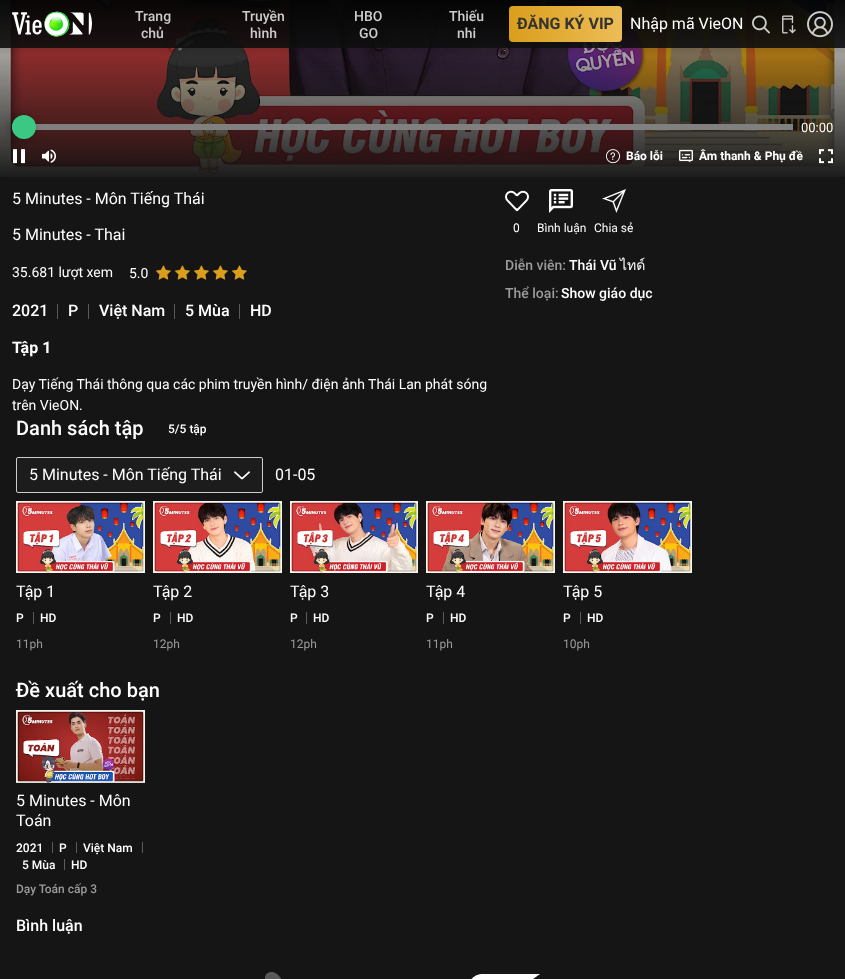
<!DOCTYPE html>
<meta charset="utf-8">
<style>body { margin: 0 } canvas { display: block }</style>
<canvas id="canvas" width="845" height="979"></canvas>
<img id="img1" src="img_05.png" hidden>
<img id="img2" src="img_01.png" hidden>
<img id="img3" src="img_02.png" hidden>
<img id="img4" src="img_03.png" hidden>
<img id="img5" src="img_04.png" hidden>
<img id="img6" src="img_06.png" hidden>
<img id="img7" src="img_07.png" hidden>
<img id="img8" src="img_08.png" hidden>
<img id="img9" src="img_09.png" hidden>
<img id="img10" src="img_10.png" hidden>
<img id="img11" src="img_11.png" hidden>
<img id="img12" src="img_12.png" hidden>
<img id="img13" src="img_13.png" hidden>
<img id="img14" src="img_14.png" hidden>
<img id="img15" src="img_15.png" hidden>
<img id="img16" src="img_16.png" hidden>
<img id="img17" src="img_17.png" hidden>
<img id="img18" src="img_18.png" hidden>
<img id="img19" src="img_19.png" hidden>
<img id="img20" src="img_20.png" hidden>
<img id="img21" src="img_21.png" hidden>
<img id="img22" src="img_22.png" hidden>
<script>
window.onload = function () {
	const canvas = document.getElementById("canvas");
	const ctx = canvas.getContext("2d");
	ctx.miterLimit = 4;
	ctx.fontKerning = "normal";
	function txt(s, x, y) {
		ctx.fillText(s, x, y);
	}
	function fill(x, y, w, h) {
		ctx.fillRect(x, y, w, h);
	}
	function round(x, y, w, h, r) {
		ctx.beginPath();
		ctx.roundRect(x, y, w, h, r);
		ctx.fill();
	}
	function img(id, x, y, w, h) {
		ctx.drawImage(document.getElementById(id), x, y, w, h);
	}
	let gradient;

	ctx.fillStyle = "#111111";
	fill(0, 0, 845, 979);
	img("img1", 0, 0, 845, 177);
	ctx.fillStyle = "rgba(17, 17, 17, 0.9)";
	fill(0, 0, 845, 48);
	gradient = ctx.createLinearGradient(423, 56, 423, 0);
	gradient.addColorStop(0, "rgba(0, 0, 0, 0)");
	gradient.addColorStop(1, "rgba(0, 0, 0, 0.75)");
	ctx.fillStyle = gradient;
	fill(0, 0, 845, 54);
	img("img2", 12, 11, 80, 26);
	gradient = ctx.createLinearGradient(509, 24, 622, 24);
	gradient.addColorStop(0, "#DA9E1C");
	gradient.addColorStop(1, "#ECBD57");
	ctx.fillStyle = gradient;
	round(509, 6, 113, 36, 4);
	img("img3", 752, 15, 18, 19);
	img("img4", 782, 15, 14, 19);
	img("img5", 807, 11, 26, 27);
	ctx.fillStyle = "#808080";
	fill(12, 124, 781, 6);
	ctx.fillStyle = "rgba(0, 0, 0, 0.3)";
	ctx.filter = "blur(5px)";
	ctx.beginPath();
	ctx.roundRect(10, 115, 24, 24, 12);
	ctx.fill();
	ctx.filter = "none";
	ctx.fillStyle = "#3AC882";
	ctx.beginPath();
	ctx.arc(24, 127, 12, 0, Math.PI * 2);
	ctx.fill();
	img("img6", 13, 149, 12, 15);
	img("img7", 42, 149, 14, 14);
	img("img8", 606, 149, 14, 15);
	img("img9", 679, 149, 14, 14);
	img("img10", 819, 149, 14, 15);
	ctx.fillStyle = "#151515";
	round(0, 177, 845, 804, 2);
	img("img11", 156, 265, 15, 15);
	img("img11", 175, 265, 15, 15);
	img("img11", 194, 265, 15, 15);
	img("img11", 213, 265, 15, 15);
	img("img11", 232, 265, 15, 15);
	ctx.fillStyle = "#5B5B5B";
	fill(57, 304, 1, 15);
	fill(88, 304, 1, 15);
	fill(174, 304, 1, 15);
	fill(239, 304, 1, 15);
	img("img12", 505, 190, 24, 22);
	img("img13", 549, 189, 24, 24);
	img("img14", 602, 189, 24, 24);
	ctx.fillStyle = "#1C1C1C";
	ctx.beginPath();
	ctx.roundRect(16.5, 457.5, 246, 35, 1.5);
	ctx.fill();
	ctx.strokeStyle = "#CCCCCC";
	ctx.stroke();
	img("img15", 234, 471, 16, 9);
	img("img16", 16, 501, 129, 72);
	ctx.fillStyle = "#5B5B5B";
	fill(33, 612, 1, 12);
	img("img17", 153, 501, 129, 72);
	fill(170, 612, 1, 12);
	img("img18", 290, 501, 128, 72);
	fill(306, 612, 1, 12);
	img("img19", 426, 501, 129, 72);
	fill(443, 612, 1, 12);
	img("img20", 563, 501, 129, 72);
	fill(580, 612, 1, 12);
	img("img21", 16, 710, 129, 73);
	fill(52, 842, 1, 11);
	fill(76, 842, 1, 11);
	fill(142, 842, 1, 11);
	fill(64, 859, 1, 11);
	img("img22", 265, 972, 275, 7);
	ctx.font = "500 14px Roboto";
	ctx.fillStyle = "#CCCCCC";
	txt("Trang", 135, 21);
	txt("chủ", 141, 38);
	txt("Truyền", 242, 21);
	txt("hình", 250, 38);
	txt("HBO", 354, 21);
	txt("GO", 359, 38);
	txt("Thiếu", 449, 21);
	txt("nhi", 457, 38);
	ctx.font = "bold 16px Roboto";
	ctx.fillStyle = "#333333";
	txt("ĐĂNG KÝ VIP", 517, 29);
	ctx.font = "16px Roboto";
	ctx.fillStyle = "#FFFFFF";
	txt("Nhập mã VieON", 630, 29);
	ctx.font = "13px Roboto";
	txt("00:00", 801, 132);
	ctx.font = "bold 12px Roboto";
	txt("Báo lỗi", 626, 160);
	txt("Âm thanh & Phụ đề", 699, 160);
	ctx.font = "16px Roboto";
	txt("5 Minutes - Môn Tiếng Thái", 12, 204);
	txt("5 Minutes - Thai", 12, 240);
	ctx.font = "14px Roboto";
	txt("35.681 lượt xem", 12, 277);
	txt("5.0", 129, 278);
	ctx.font = "500 16px Roboto";
	txt("2021", 12, 316);
	txt("P", 68, 316);
	txt("Việt Nam", 99, 316);
	txt("5 Mùa", 185, 316);
	txt("HD", 250, 316);
	ctx.font = "bold 16px Roboto";
	txt("Tập 1", 12, 353);
	ctx.font = "14px Roboto";
	txt("Dạy Tiếng Thái thông qua các phim truyền hình/ điện ảnh Thái Lan phát sóng", 12, 389);
	txt("trên VieON.", 12, 410);
	ctx.font = "12px Roboto";
	txt("0", 513, 232);
	txt("Bình luận", 537, 232);
	txt("Chia sẻ", 594, 232);
	ctx.font = "500 14px Roboto";
	ctx.fillStyle = "#9B9B9B";
	txt("Diễn viên:", 505, 270);
	ctx.fillStyle = "#FFFFFF";
	txt("Thái Vũ", 569, 270);
	ctx.font = "14px Loma";
	txt("ไทด์", 620, 270);
	ctx.font = "500 14px Roboto";
	ctx.fillStyle = "#9B9B9B";
	txt("Thể loại:", 505, 298);
	ctx.fillStyle = "#FFFFFF";
	txt("Show giáo dục", 561, 298);
	ctx.font = "500 20px Roboto";
	txt("Danh sách tập", 16, 435);
	ctx.font = "500 12px Roboto";
	txt("5/5 tập", 168, 433);
	ctx.font = "16px Roboto";
	txt("5 Minutes - Môn Tiếng Thái", 29, 480);
	txt("01-05", 275, 480);
	txt("Tập 1", 16, 597);
	ctx.font = "500 12px Roboto";
	txt("P", 16, 622);
	txt("HD", 40, 622);
	ctx.font = "12px Roboto";
	ctx.fillStyle = "#9B9B9B";
	txt("11ph", 16, 648);
	ctx.font = "16px Roboto";
	ctx.fillStyle = "#FFFFFF";
	txt("Tập 2", 153, 597);
	ctx.font = "500 12px Roboto";
	txt("P", 153, 622);
	txt("HD", 177, 622);
	ctx.font = "12px Roboto";
	ctx.fillStyle = "#9B9B9B";
	txt("12ph", 153, 648);
	ctx.font = "16px Roboto";
	ctx.fillStyle = "#FFFFFF";
	txt("Tập 3", 290, 597);
	ctx.font = "500 12px Roboto";
	txt("P", 290, 622);
	txt("HD", 313, 622);
	ctx.font = "12px Roboto";
	ctx.fillStyle = "#9B9B9B";
	txt("12ph", 290, 648);
	ctx.font = "16px Roboto";
	ctx.fillStyle = "#FFFFFF";
	txt("Tập 4", 426, 597);
	ctx.font = "500 12px Roboto";
	txt("P", 426, 622);
	txt("HD", 450, 622);
	ctx.font = "12px Roboto";
	ctx.fillStyle = "#9B9B9B";
	txt("11ph", 426, 648);
	ctx.font = "16px Roboto";
	ctx.fillStyle = "#FFFFFF";
	txt("Tập 5", 563, 597);
	ctx.font = "500 12px Roboto";
	txt("P", 563, 622);
	txt("HD", 587, 622);
	ctx.font = "12px Roboto";
	ctx.fillStyle = "#9B9B9B";
	txt("10ph", 563, 648);
	ctx.font = "500 20px Roboto";
	ctx.fillStyle = "#FFFFFF";
	txt("Đề xuất cho bạn", 16, 697);
	ctx.font = "16px Roboto";
	txt("5 Minutes - Môn", 16, 806);
	txt("Toán", 16, 826);
	ctx.font = "500 12px Roboto";
	txt("2021", 16, 852);
	txt("P", 59, 852);
	txt("Việt Nam", 83, 852);
	txt("5 Mùa", 22, 869);
	txt("HD", 71, 869);
	ctx.fillStyle = "#9B9B9B";
	txt("Dạy Toán cấp 3", 16, 893);
	ctx.font = "500 16px Roboto";
	ctx.fillStyle = "#FFFFFF";
	txt("Bình luận", 16, 931);
};
</script>
